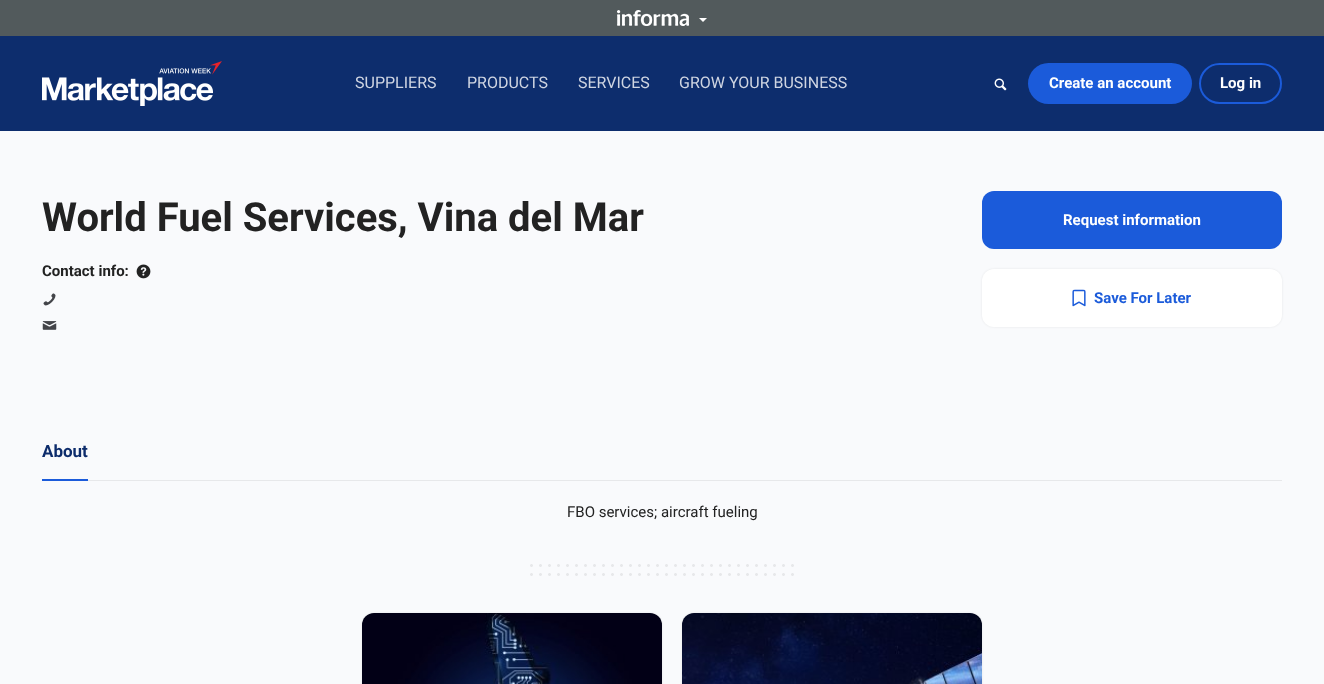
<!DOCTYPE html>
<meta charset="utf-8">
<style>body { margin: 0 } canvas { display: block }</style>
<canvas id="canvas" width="1324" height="684"></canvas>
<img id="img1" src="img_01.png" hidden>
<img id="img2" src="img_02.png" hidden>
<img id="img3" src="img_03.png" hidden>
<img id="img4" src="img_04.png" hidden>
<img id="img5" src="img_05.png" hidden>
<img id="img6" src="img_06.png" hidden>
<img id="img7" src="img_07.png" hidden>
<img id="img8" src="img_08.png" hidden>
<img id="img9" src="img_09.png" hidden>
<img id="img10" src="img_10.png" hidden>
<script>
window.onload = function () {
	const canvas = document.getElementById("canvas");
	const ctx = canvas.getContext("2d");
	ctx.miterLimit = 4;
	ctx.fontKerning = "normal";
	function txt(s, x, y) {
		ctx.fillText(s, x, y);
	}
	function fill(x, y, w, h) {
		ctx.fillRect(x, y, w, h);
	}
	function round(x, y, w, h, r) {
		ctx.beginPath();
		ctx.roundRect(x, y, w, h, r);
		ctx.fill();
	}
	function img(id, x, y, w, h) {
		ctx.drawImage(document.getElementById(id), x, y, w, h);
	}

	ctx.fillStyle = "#F9FAFC";
	fill(0, 0, 1324, 684);
	ctx.fillStyle = "#525A5C";
	fill(0, 0, 1324, 36);
	img("img1", 617, 10, 72, 16);
	ctx.fillStyle = "#FFFFFF";
	ctx.beginPath();
	ctx.moveTo(699, 18);
	ctx.lineTo(707, 18);
	ctx.lineTo(703, 22);
	ctx.closePath();
	ctx.fill();
	ctx.fillStyle = "#0D2D6D";
	fill(0, 36, 1324, 95);
	img("img2", 42, 61, 180, 45);
	img("img3", 994, 78, 13, 13);
	ctx.fillStyle = "#1B5BDA";
	round(1028, 63, 164, 41, 20.5);
	ctx.beginPath();
	ctx.roundRect(1200, 64, 81, 39, 19.5);
	ctx.strokeStyle = "#1B5BDA";
	ctx.lineWidth = 2;
	ctx.stroke();
	img("img4", 136, 264, 15, 15);
	img("img5", 43, 293, 13, 13);
	img("img6", 42, 321, 15, 9);
	round(982, 191, 300, 58, 12);
	ctx.fillStyle = "rgba(0, 0, 0, 0.08)";
	ctx.filter = "blur(1px)";
	ctx.beginPath();
	ctx.roundRect(982, 269, 300, 58, 12);
	ctx.fill();
	ctx.filter = "none";
	ctx.fillStyle = "#FFFFFF";
	round(982, 269, 300, 58, 12);
	img("img7", 1072, 289, 14, 18);
	ctx.fillStyle = "#E7E8EA";
	fill(88, 480, 1194, 1);
	ctx.fillStyle = "#1B5BDA";
	fill(42, 479, 46, 2);
	img("img8", 530, 564, 264, 12);
	ctx.fillStyle = "rgba(0, 0, 0, 0.08)";
	ctx.filter = "blur(1px)";
	ctx.beginPath();
	ctx.roundRect(362, 613, 300, 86, 12);
	ctx.fill();
	ctx.filter = "none";
	img("img9", 362, 613, 300, 71);
	ctx.filter = "blur(1px)";
	ctx.beginPath();
	ctx.roundRect(682, 613, 300, 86, 12);
	ctx.fill();
	ctx.filter = "none";
	img("img10", 682, 613, 300, 71);
	ctx.font = "16px Roboto";
	ctx.fillStyle = "#CFD5E2";
	txt("SUPPLIERS", 355, 88);
	txt("PRODUCTS", 467, 88);
	txt("SERVICES", 578, 88);
	txt("GROW YOUR BUSINESS", 679, 88);
	ctx.font = "bold 15px Roboto";
	ctx.fillStyle = "#FFFFFF";
	txt("Create an account", 1049, 88);
	txt("Log in", 1220, 88);
	ctx.font = "bold 40px Roboto";
	ctx.fillStyle = "#222222";
	txt("World Fuel Services, Vina del Mar", 42, 231);
	ctx.font = "bold 15px Roboto";
	txt("Contact info:", 42, 276);
	ctx.fillStyle = "#FFFFFF";
	txt("Request information", 1063, 225);
	ctx.fillStyle = "#1B5BDA";
	txt("Save For Later", 1094, 303);
	ctx.font = "bold 17px Roboto";
	ctx.fillStyle = "#0D2C6B";
	txt("About", 42, 457);
	ctx.font = "15px Roboto";
	ctx.fillStyle = "#222222";
	txt("FBO services; aircraft fueling", 567, 517);
};
</script>
